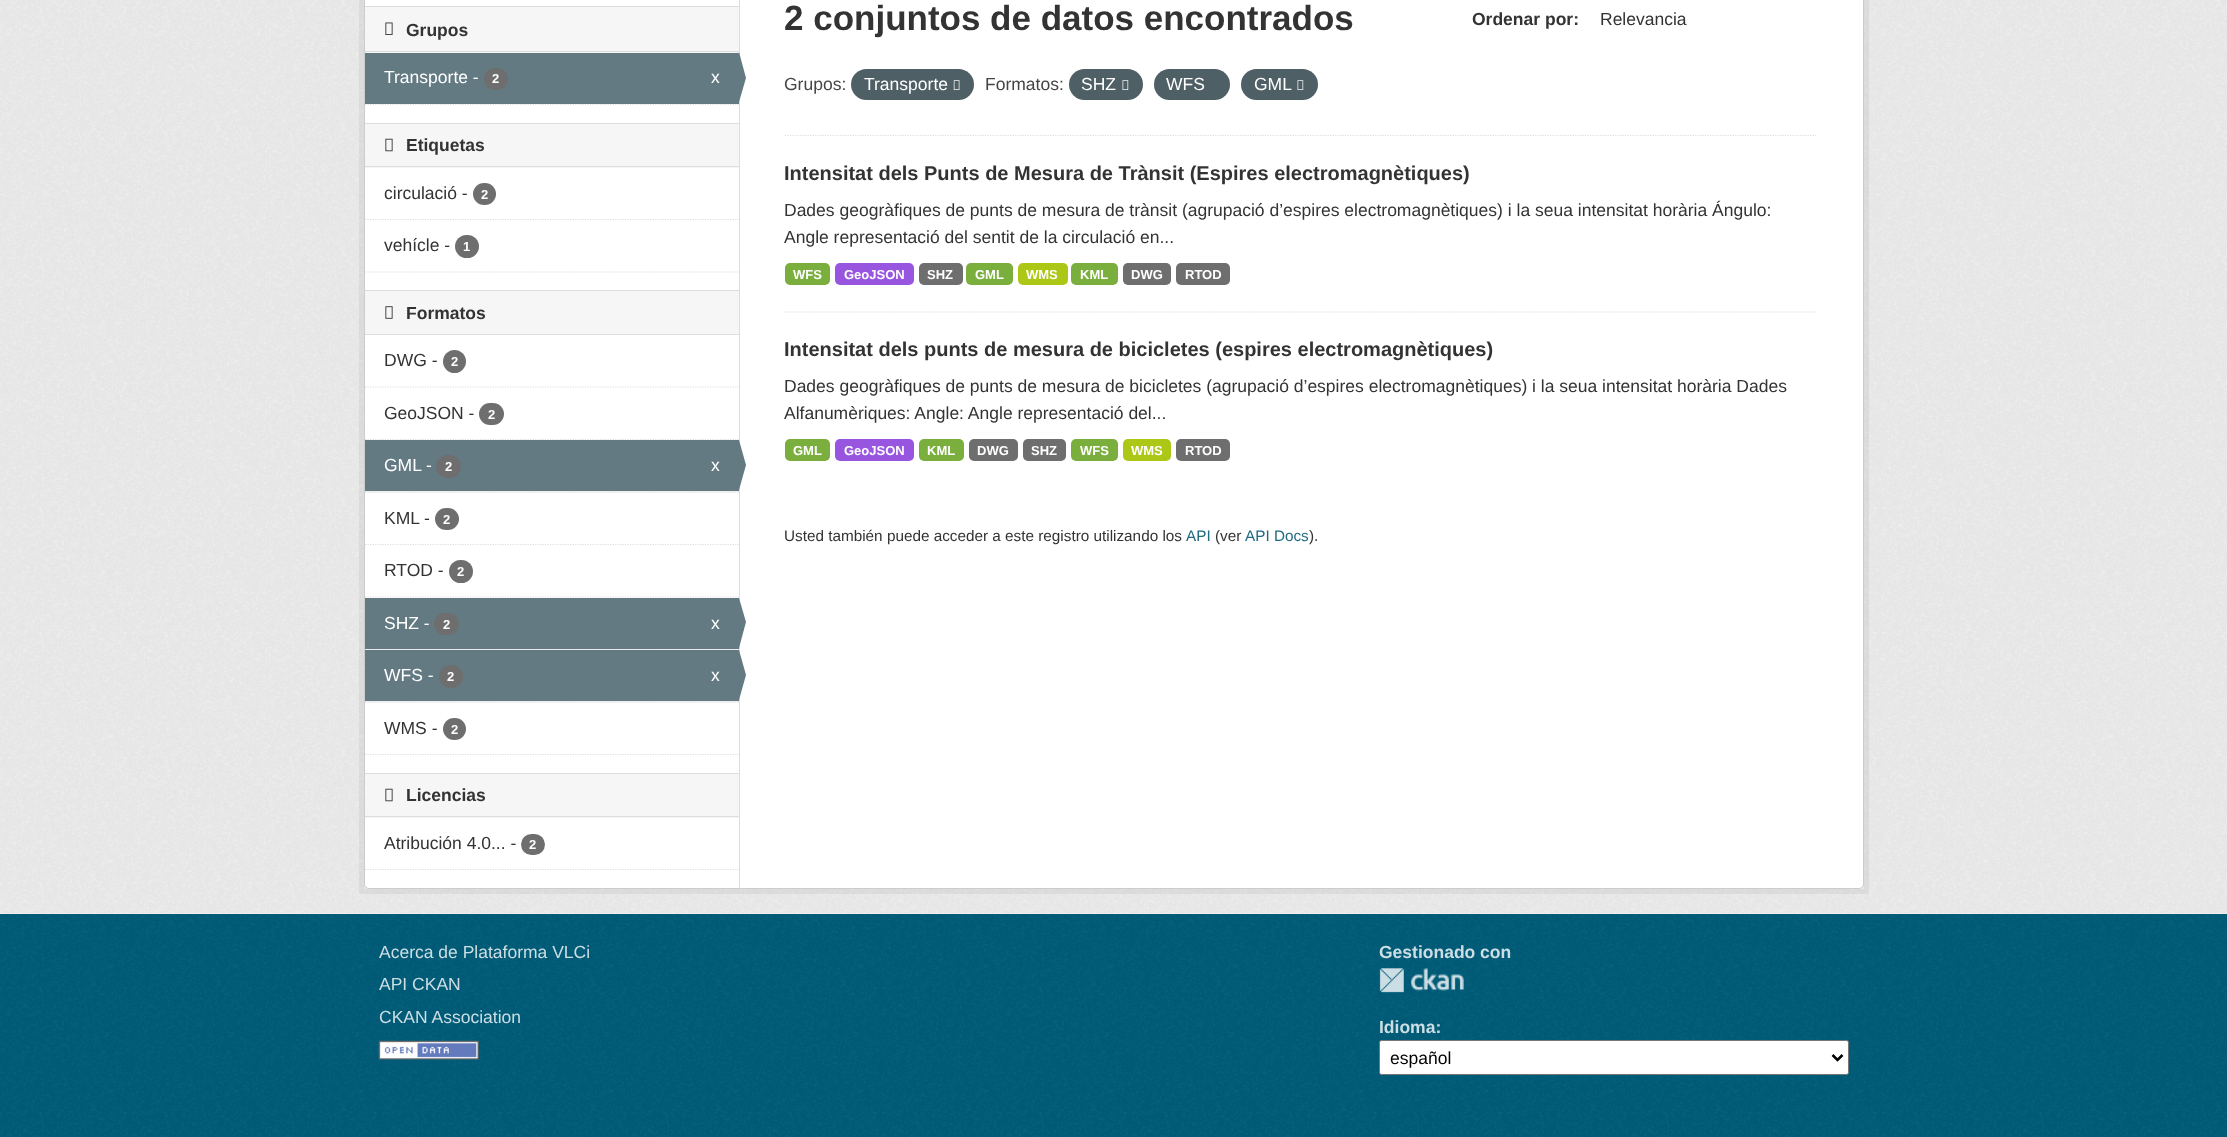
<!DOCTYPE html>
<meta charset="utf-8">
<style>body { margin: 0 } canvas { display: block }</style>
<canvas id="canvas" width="2227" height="1137"></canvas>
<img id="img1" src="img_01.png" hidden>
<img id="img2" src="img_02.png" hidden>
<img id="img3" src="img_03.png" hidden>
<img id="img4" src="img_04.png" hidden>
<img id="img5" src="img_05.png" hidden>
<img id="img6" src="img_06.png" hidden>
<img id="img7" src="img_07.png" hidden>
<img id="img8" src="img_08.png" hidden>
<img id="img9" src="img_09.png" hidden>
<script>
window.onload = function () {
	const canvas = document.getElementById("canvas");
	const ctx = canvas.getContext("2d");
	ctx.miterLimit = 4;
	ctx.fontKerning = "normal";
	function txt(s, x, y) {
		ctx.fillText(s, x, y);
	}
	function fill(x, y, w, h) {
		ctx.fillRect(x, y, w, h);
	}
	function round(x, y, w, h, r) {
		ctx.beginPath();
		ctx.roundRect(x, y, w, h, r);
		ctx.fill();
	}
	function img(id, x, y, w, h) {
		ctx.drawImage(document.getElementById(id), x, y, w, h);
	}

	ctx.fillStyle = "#005D7A";
	fill(0, 0, 2227, 1137);
	ctx.fillStyle = "#EEEEEE";
	fill(0, 0, 2227, 914);
	img("img1", 0, 0, 2227, 913);
	ctx.strokeStyle = "rgba(0, 0, 0, 0.05)";
	ctx.lineWidth = 5;
	ctx.strokeRect(361.5, -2.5, 1505, 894);
	ctx.fillStyle = "#FFFFFF";
	ctx.beginPath();
	ctx.roundRect(364.5, -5.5, 1499, 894, 4.5);
	ctx.fill();
	ctx.strokeStyle = "#CCCCCC";
	ctx.lineWidth = 1;
	ctx.stroke();
	ctx.fillStyle = "#F6F6F6";
	fill(365, 7, 374, 46);
	ctx.fillStyle = "#DDDDDD";
	fill(365, 6, 374, 1);
	fill(365, 51, 374, 1);
	img("img2", 385, 22, 8, 13);
	ctx.beginPath();
	ctx.moveTo(365, 104.5);
	ctx.lineTo(739, 104.5);
	ctx.strokeStyle = "#DDDDDD";
	ctx.lineWidth = 1.2;
	ctx.setLineDash([1.25, 1.25]);
	ctx.stroke();
	ctx.fillStyle = "#647A82";
	fill(365, 53, 374, 51);
	ctx.fillStyle = "#6E6E6E";
	round(484, 68, 24, 22, 11);
	ctx.fillStyle = "#DDDDDD";
	fill(739, 0, 1, 888);
	ctx.fillStyle = "#647A82";
	ctx.beginPath();
	ctx.moveTo(739, 102);
	ctx.lineTo(739, 52);
	ctx.lineTo(746, 78);
	ctx.closePath();
	ctx.fill();
	ctx.fillStyle = "#F6F6F6";
	fill(365, 124, 374, 44);
	ctx.fillStyle = "#DDDDDD";
	fill(365, 123, 374, 1);
	fill(365, 166, 374, 1);
	img("img3", 385, 138, 8, 14);
	ctx.beginPath();
	ctx.moveTo(365, 219.5);
	ctx.lineTo(739, 219.5);
	ctx.stroke();
	ctx.fillStyle = "#6E6E6E";
	round(473, 183, 23, 22, 11);
	round(455, 235, 24, 23, 11.5);
	ctx.beginPath();
	ctx.moveTo(365, 272);
	ctx.lineTo(739, 272);
	ctx.stroke();
	ctx.fillStyle = "#F6F6F6";
	fill(365, 291, 374, 43);
	ctx.fillStyle = "#DDDDDD";
	fill(365, 290, 374, 1);
	fill(365, 334, 374, 1);
	img("img4", 385, 306, 8, 13);
	ctx.beginPath();
	ctx.moveTo(365, 387);
	ctx.lineTo(739, 387);
	ctx.stroke();
	ctx.fillStyle = "#6E6E6E";
	ctx.beginPath();
	ctx.arc(454.5, 361.5, 11.5, 0, Math.PI * 2);
	ctx.fill();
	ctx.beginPath();
	ctx.moveTo(365, 439.5);
	ctx.lineTo(739, 439.5);
	ctx.stroke();
	round(479, 403, 25, 22, 11);
	ctx.fillStyle = "#F6F6F6";
	fill(365, 491, 374, 2);
	ctx.beginPath();
	ctx.moveTo(365, 492);
	ctx.lineTo(739, 492);
	ctx.stroke();
	ctx.fillStyle = "#647A82";
	fill(365, 440, 374, 51);
	ctx.fillStyle = "#6E6E6E";
	round(436, 455, 25, 23, 11.5);
	ctx.fillStyle = "#647A82";
	ctx.beginPath();
	ctx.moveTo(739, 490);
	ctx.lineTo(739, 440);
	ctx.lineTo(746, 465);
	ctx.closePath();
	ctx.fill();
	ctx.beginPath();
	ctx.moveTo(365, 544.5);
	ctx.lineTo(739, 544.5);
	ctx.stroke();
	ctx.fillStyle = "#6E6E6E";
	round(435, 508, 24, 22, 11);
	ctx.beginPath();
	ctx.moveTo(365, 597);
	ctx.lineTo(739, 597);
	ctx.stroke();
	round(449, 560, 24, 23, 11.5);
	ctx.fillStyle = "#F6F6F6";
	fill(366, 649, 373, 1);
	ctx.beginPath();
	ctx.moveTo(365, 649.5);
	ctx.lineTo(739, 649.5);
	ctx.stroke();
	ctx.fillStyle = "#647A82";
	fill(365, 598, 374, 51);
	ctx.fillStyle = "#6E6E6E";
	round(434, 613, 25, 22, 11);
	ctx.fillStyle = "#647A82";
	ctx.beginPath();
	ctx.moveTo(739, 648);
	ctx.lineTo(739, 598);
	ctx.lineTo(746, 622);
	ctx.closePath();
	ctx.fill();
	ctx.fillStyle = "#F6F6F6";
	fill(365, 701, 374, 2);
	ctx.beginPath();
	ctx.moveTo(365, 702);
	ctx.lineTo(739, 702);
	ctx.stroke();
	ctx.fillStyle = "#647A82";
	fill(365, 650, 374, 51);
	ctx.fillStyle = "#6E6E6E";
	round(439, 665, 24, 23, 11.5);
	ctx.fillStyle = "#647A82";
	ctx.beginPath();
	ctx.moveTo(739, 700);
	ctx.lineTo(739, 650);
	ctx.lineTo(746, 675);
	ctx.closePath();
	ctx.fill();
	ctx.fillStyle = "#6E6E6E";
	round(443, 718, 23, 22, 11);
	ctx.beginPath();
	ctx.moveTo(365, 754.5);
	ctx.lineTo(739, 754.5);
	ctx.stroke();
	ctx.fillStyle = "#F6F6F6";
	fill(365, 774, 374, 44);
	ctx.fillStyle = "#DDDDDD";
	fill(365, 773, 374, 1);
	fill(365, 816, 374, 1);
	img("img3", 385, 788, 8, 14);
	ctx.fillStyle = "#6E6E6E";
	round(521, 834, 24, 21, 10.5);
	ctx.beginPath();
	ctx.moveTo(365, 869.5);
	ctx.lineTo(739, 869.5);
	ctx.stroke();
	ctx.beginPath();
	ctx.moveTo(785, 135.5);
	ctx.lineTo(1817.5, 135.5);
	ctx.stroke();
	ctx.fillStyle = "#4E5F65";
	round(851, 69, 123, 31, 15.5);
	img("img5", 953, 80, 7, 10);
	round(1069, 69, 74, 31, 15.5);
	img("img6", 1122, 80, 7, 10);
	round(1154, 69, 76, 31, 15.5);
	round(1241, 69, 77, 31, 15.5);
	img("img6", 1297, 80, 7, 10);
	ctx.beginPath();
	ctx.moveTo(785, 312);
	ctx.lineTo(1817.5, 312);
	ctx.stroke();
	ctx.fillStyle = "#7AAE3D";
	round(785, 263, 45, 22, 5);
	ctx.fillStyle = "#9855E0";
	round(835, 263, 79, 22, 5);
	ctx.fillStyle = "#6E6E6E";
	round(919, 263, 44, 22, 5);
	ctx.fillStyle = "#7AAE3D";
	round(966, 263, 47, 22, 5);
	ctx.fillStyle = "#ADC717";
	round(1018, 263, 50, 22, 5);
	ctx.fillStyle = "#7AAE3D";
	round(1071, 263, 47, 22, 5);
	ctx.fillStyle = "#6E6E6E";
	round(1123, 263, 48, 22, 5);
	round(1176, 263, 54, 22, 5);
	ctx.fillStyle = "#7AAE3D";
	round(785, 439, 45, 22, 5);
	ctx.fillStyle = "#9855E0";
	round(835, 439, 79, 22, 5);
	ctx.fillStyle = "#7AAE3D";
	round(919, 439, 45, 22, 5);
	ctx.fillStyle = "#6E6E6E";
	round(969, 439, 49, 22, 5);
	round(1023, 439, 43, 22, 5);
	ctx.fillStyle = "#7AAE3D";
	round(1071, 439, 47, 22, 5);
	ctx.fillStyle = "#ADC717";
	round(1123, 439, 48, 22, 5);
	ctx.fillStyle = "#6E6E6E";
	round(1176, 439, 54, 22, 5);
	img("img7", 0, 914, 2227, 223);
	img("img8", 378, 1040, 101, 20);
	img("img9", 1379, 968, 85, 25);
	ctx.fillStyle = "#FFFFFF";
	ctx.beginPath();
	ctx.roundRect(1379.5, 1040.5, 469, 34, 2);
	ctx.fill();
	ctx.strokeStyle = "#767676";
	ctx.lineWidth = 1;
	ctx.setLineDash([]);
	ctx.stroke();
	ctx.beginPath();
	ctx.moveTo(1832.5, 1055);
	ctx.lineTo(1837.5, 1060);
	ctx.lineTo(1842.5, 1055);
	ctx.strokeStyle = "#000000";
	ctx.lineWidth = 2.5;
	ctx.stroke();
	ctx.font = "bold 17.5px Liberation Sans";
	ctx.fillStyle = "#333333";
	txt("Grupos", 406, 36);
	ctx.font = "17.5px Liberation Sans";
	ctx.fillStyle = "#FFFFFF";
	txt("Transporte -", 384, 83);
	ctx.font = "bold 13px Liberation Sans";
	txt("2", 492, 83);
	ctx.font = "17.5px Liberation Sans";
	txt("x", 711, 83);
	ctx.font = "bold 17.5px Liberation Sans";
	ctx.fillStyle = "#333333";
	txt("Etiquetas", 406, 151);
	ctx.font = "17.5px Liberation Sans";
	txt("circulació -", 384, 199);
	ctx.font = "bold 13px Liberation Sans";
	ctx.fillStyle = "#FFFFFF";
	txt("2", 481, 199);
	ctx.font = "17.5px Liberation Sans";
	ctx.fillStyle = "#333333";
	txt("vehícle -", 384, 251);
	ctx.font = "bold 13px Liberation Sans";
	ctx.fillStyle = "#FFFFFF";
	txt("1", 463, 251);
	ctx.font = "bold 17.5px Liberation Sans";
	ctx.fillStyle = "#333333";
	txt("Formatos", 406, 319);
	ctx.font = "17.5px Liberation Sans";
	txt("DWG -", 384, 366);
	ctx.font = "bold 13px Liberation Sans";
	ctx.fillStyle = "#FFFFFF";
	txt("2", 451, 366);
	ctx.font = "17.5px Liberation Sans";
	ctx.fillStyle = "#333333";
	txt("GeoJSON -", 384, 419);
	ctx.font = "bold 13px Liberation Sans";
	ctx.fillStyle = "#FFFFFF";
	txt("2", 488, 419);
	ctx.font = "17.5px Liberation Sans";
	txt("GML", 384, 471);
	txt("-", 426, 471);
	ctx.font = "bold 13px Liberation Sans";
	txt("2", 445, 471);
	ctx.font = "17.5px Liberation Sans";
	txt("x", 711, 471);
	ctx.fillStyle = "#333333";
	txt("KML", 384, 524);
	txt("-", 424, 524);
	ctx.font = "bold 13px Liberation Sans";
	ctx.fillStyle = "#FFFFFF";
	txt("2", 443, 524);
	ctx.font = "17.5px Liberation Sans";
	ctx.fillStyle = "#333333";
	txt("RTOD -", 384, 576);
	ctx.font = "bold 13px Liberation Sans";
	ctx.fillStyle = "#FFFFFF";
	txt("2", 457, 576);
	ctx.font = "17.5px Liberation Sans";
	txt("SHZ -", 384, 629);
	ctx.font = "bold 13px Liberation Sans";
	txt("2", 443, 629);
	ctx.font = "17.5px Liberation Sans";
	txt("x", 711, 629);
	txt("WFS -", 384, 681);
	ctx.font = "bold 13px Liberation Sans";
	txt("2", 447, 681);
	ctx.font = "17.5px Liberation Sans";
	txt("x", 711, 681);
	ctx.fillStyle = "#333333";
	txt("WMS -", 384, 734);
	ctx.font = "bold 13px Liberation Sans";
	ctx.fillStyle = "#FFFFFF";
	txt("2", 451, 734);
	ctx.font = "bold 17.5px Liberation Sans";
	ctx.fillStyle = "#333333";
	txt("Licencias", 406, 801);
	ctx.font = "17.5px Liberation Sans";
	txt("Atribución 4.0... -", 384, 849);
	ctx.font = "bold 13px Liberation Sans";
	ctx.fillStyle = "#FFFFFF";
	txt("2", 529, 849);
	ctx.font = "bold 35px Liberation Sans";
	ctx.fillStyle = "#333333";
	txt("2 conjuntos de datos encontrados", 784, 30);
	ctx.font = "bold 17.5px Liberation Sans";
	txt("Ordenar por:", 1472, 25);
	ctx.font = "17.5px Liberation Sans";
	txt("Relevancia", 1600, 25);
	ctx.fillStyle = "#444444";
	txt("Grupos:", 784, 90);
	ctx.fillStyle = "#FFFFFF";
	txt("Transporte", 864, 90);
	ctx.fillStyle = "#444444";
	txt("Formatos:", 985, 90);
	ctx.fillStyle = "#FFFFFF";
	txt("SHZ", 1081, 90);
	txt("WFS", 1166, 90);
	txt("GML", 1254, 90);
	ctx.font = "bold 20px Liberation Sans";
	ctx.fillStyle = "#333333";
	txt("Intensitat dels Punts de Mesura de Trànsit (Espires electromagnètiques)", 784, 180);
	ctx.font = "17.5px Liberation Sans";
	txt("Dades geogràfiques de punts de mesura de trànsit (agrupació d’espires electromagnètiques) i la seua intensitat horària Ángulo:", 784, 216);
	txt("Angle representació del sentit de la circulació en...", 784, 243);
	ctx.font = "bold 13px Liberation Sans";
	ctx.fillStyle = "#FFFFFF";
	txt("WFS", 793, 279);
	txt("GeoJSON", 844, 279);
	txt("SHZ", 927, 279);
	txt("GML", 975, 279);
	txt("WMS", 1026, 279);
	txt("KML", 1080, 279);
	txt("DWG", 1131, 279);
	txt("RTOD", 1185, 279);
	ctx.font = "bold 20px Liberation Sans";
	ctx.fillStyle = "#333333";
	txt("Intensitat dels punts de mesura de bicicletes (espires electromagnètiques)", 784, 356);
	ctx.font = "17.5px Liberation Sans";
	txt("Dades geogràfiques de punts de mesura de bicicletes (agrupació d’espires electromagnètiques) i la seua intensitat horària Dades", 784, 392);
	txt("Alfanumèriques: Angle: Angle representació del...", 784, 419);
	ctx.font = "bold 13px Liberation Sans";
	ctx.fillStyle = "#FFFFFF";
	txt("GML", 793, 455);
	txt("GeoJSON", 844, 455);
	txt("KML", 927, 455);
	txt("DWG", 977, 455);
	txt("SHZ", 1031, 455);
	txt("WFS", 1080, 455);
	txt("WMS", 1131, 455);
	txt("RTOD", 1185, 455);
	ctx.font = "15.3px Liberation Sans";
	ctx.fillStyle = "#333333";
	txt("Usted también puede acceder a este registro utilizando los", 784, 541);
	ctx.fillStyle = "#206B82";
	txt("API", 1186, 541);
	ctx.fillStyle = "#333333";
	txt("(ver", 1215, 541);
	ctx.fillStyle = "#206B82";
	txt("API Docs", 1245, 541);
	ctx.fillStyle = "#333333";
	txt(").", 1309, 541);
	ctx.font = "17.5px Liberation Sans";
	ctx.fillStyle = "#CCDEE3";
	txt("Acerca de Plataforma VLCi", 379, 958);
	txt("API CKAN", 379, 990);
	txt("CKAN Association", 379, 1023);
	ctx.font = "bold 17.5px Liberation Sans";
	txt("Gestionado con", 1379, 958);
	txt("Idioma:", 1379, 1033);
	ctx.font = "17.5px Liberation Sans";
	ctx.fillStyle = "#000000";
	txt("español", 1390, 1064);
};
</script>
